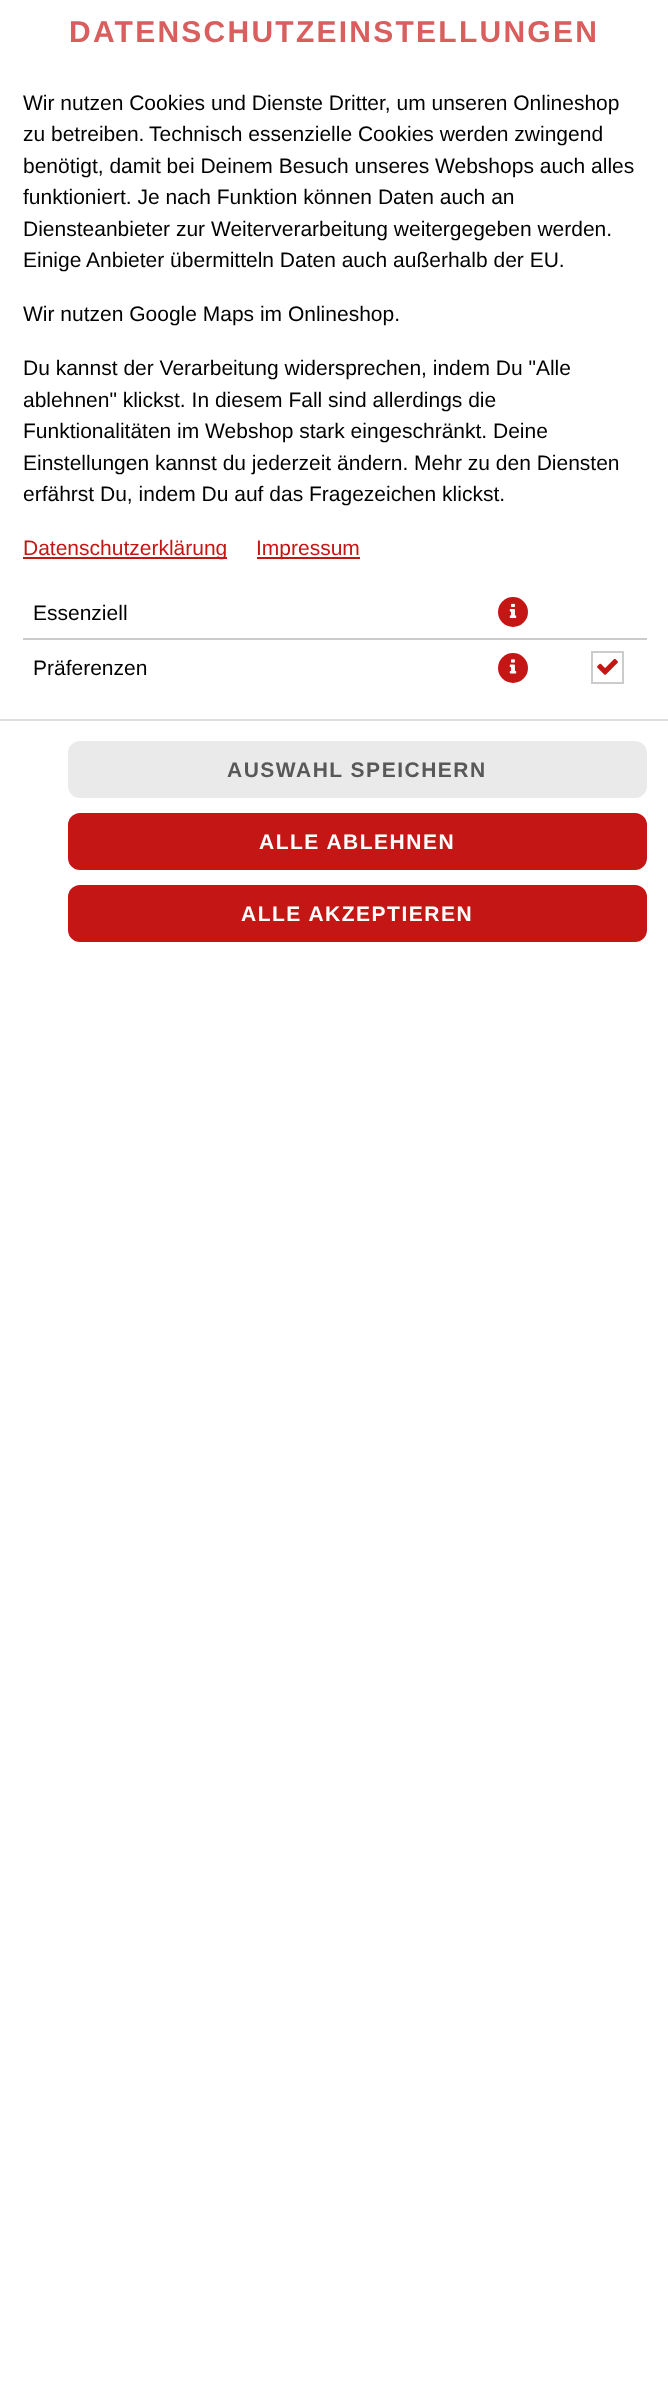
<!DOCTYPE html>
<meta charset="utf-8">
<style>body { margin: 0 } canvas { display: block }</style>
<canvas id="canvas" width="668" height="2388"></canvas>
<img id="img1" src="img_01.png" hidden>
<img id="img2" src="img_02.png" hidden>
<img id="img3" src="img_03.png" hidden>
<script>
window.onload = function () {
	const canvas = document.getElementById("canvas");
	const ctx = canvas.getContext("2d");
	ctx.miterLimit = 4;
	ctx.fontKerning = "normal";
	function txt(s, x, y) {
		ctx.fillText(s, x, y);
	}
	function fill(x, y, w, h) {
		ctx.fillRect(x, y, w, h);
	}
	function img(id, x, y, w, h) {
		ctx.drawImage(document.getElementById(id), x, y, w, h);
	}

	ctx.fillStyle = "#FFFFFF";
	fill(0, 0, 668, 2388);
	ctx.fillStyle = "#C41615";
	fill(23, 557, 204, 2);
	fill(257, 557, 103, 2);
	ctx.fillStyle = "#CCCCCC";
	fill(23, 638, 624, 2);
	ctx.fillStyle = "#C41615";
	ctx.beginPath();
	ctx.arc(513, 612, 15, 0, Math.PI * 2);
	ctx.fill();
	img("img1", 509, 603, 8, 15);
	ctx.beginPath();
	ctx.arc(513, 668, 15, 0, Math.PI * 2);
	ctx.fill();
	img("img2", 509, 659, 8, 15);
	ctx.strokeStyle = "#CCCCCC";
	ctx.lineWidth = 2;
	ctx.strokeRect(592, 652, 31, 31);
	img("img3", 597, 658, 21, 17);
	ctx.fillStyle = "#DDDDDD";
	fill(0, 719, 668, 2);
	ctx.fillStyle = "#EAEAEA";
	ctx.beginPath();
	ctx.roundRect(69, 742, 577, 55, 11);
	ctx.fill();
	ctx.strokeStyle = "#EAEAEA";
	ctx.stroke();
	ctx.fillStyle = "#C41615";
	ctx.beginPath();
	ctx.roundRect(69, 814, 577, 55, 11);
	ctx.fill();
	ctx.strokeStyle = "#C41615";
	ctx.stroke();
	ctx.beginPath();
	ctx.roundRect(69, 886, 577, 55, 11);
	ctx.fill();
	ctx.stroke();
	ctx.letterSpacing = "2.25px";
	ctx.font = "bold 30px Liberation Sans";
	ctx.fillStyle = "#D95E5E";
	txt("DATENSCHUTZEINSTELLUNGEN", 69, 42);
	ctx.letterSpacing = "0px";
	ctx.font = "21px Liberation Sans";
	ctx.fillStyle = "#000000";
	txt("Wir nutzen Cookies und Dienste Dritter, um unseren Onlineshop", 23, 110);
	txt("zu betreiben.", 23, 141);
	txt("Technisch essenzielle Cookies werden zwingend", 149, 141);
	txt("benötigt, damit bei Deinem Besuch unseres Webshops auch alles", 23, 173);
	txt("funktioniert. Je nach Funktion können Daten auch an", 23, 204);
	txt("Diensteanbieter zur Weiterverarbeitung weitergegeben werden.", 23, 236);
	txt("Einige Anbieter übermitteln Daten auch außerhalb der EU.", 23, 267);
	txt("Wir nutzen Google Maps im Onlineshop.", 23, 321);
	txt("Du kannst der Verarbeitung widersprechen, indem Du \"Alle", 23, 375);
	txt("ablehnen\" klickst. In diesem Fall sind allerdings die", 23, 407);
	txt("Funktionalitäten im Webshop stark eingeschränkt. Deine", 23, 438);
	txt("Einstellungen kannst du jederzeit ändern. Mehr zu den Diensten", 23, 470);
	txt("erfährst Du, indem Du auf das Fragezeichen klickst.", 23, 501);
	ctx.fillStyle = "#C41615";
	txt("Datenschutzerklärung", 23, 555);
	txt("Impressum", 256, 555);
	ctx.fillStyle = "#000000";
	txt("Essenziell", 33, 620);
	txt("Präferenzen", 33, 675);
	ctx.letterSpacing = "1.5px";
	ctx.font = "bold 21px Liberation Sans";
	ctx.fillStyle = "#585858";
	txt("AUSWAHL SPEICHERN", 227, 777);
	ctx.fillStyle = "#FFFFFF";
	txt("ALLE ABLEHNEN", 259, 849);
	txt("ALLE AKZEPTIEREN", 241, 921);
};
</script>
